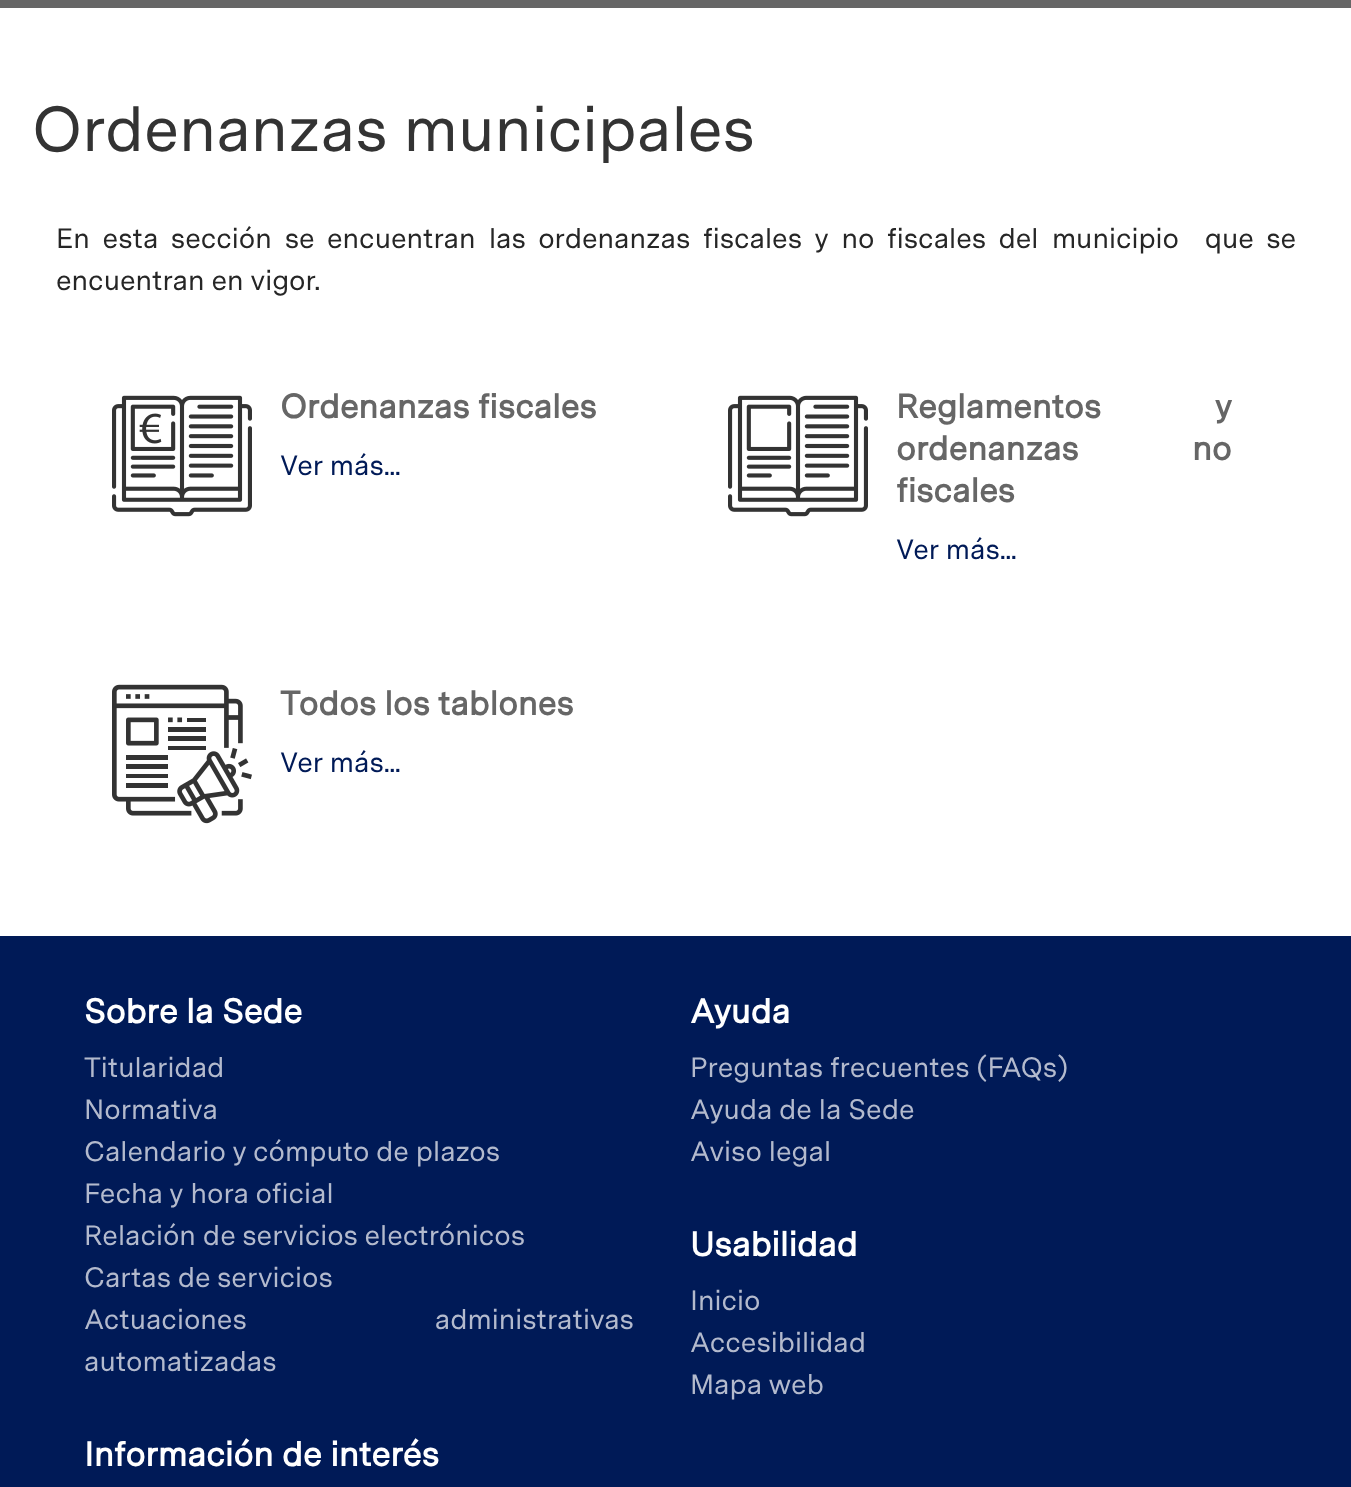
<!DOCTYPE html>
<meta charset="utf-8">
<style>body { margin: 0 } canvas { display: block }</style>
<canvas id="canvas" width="1351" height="1487"></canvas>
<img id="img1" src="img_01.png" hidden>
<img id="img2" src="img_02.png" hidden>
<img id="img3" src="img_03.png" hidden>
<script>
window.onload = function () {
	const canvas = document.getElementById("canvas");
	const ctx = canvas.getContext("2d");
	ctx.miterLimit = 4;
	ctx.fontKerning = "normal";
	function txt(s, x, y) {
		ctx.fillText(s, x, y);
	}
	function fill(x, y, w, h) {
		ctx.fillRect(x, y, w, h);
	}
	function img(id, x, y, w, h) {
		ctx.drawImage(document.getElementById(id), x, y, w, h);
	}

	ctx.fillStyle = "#FFFFFF";
	fill(0, 0, 1351, 1487);
	ctx.fillStyle = "#666666";
	fill(0, 0, 1351, 8);
	img("img1", 112, 395, 140, 122);
	img("img2", 728, 395, 140, 122);
	img("img3", 112, 684, 140, 140);
	ctx.fillStyle = "#001A57";
	fill(0, 936, 1351, 551);
	ctx.font = "63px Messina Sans";
	ctx.fillStyle = "#333333";
	txt("Ordenanzas municipales", 32, 151);
	ctx.wordSpacing = "5.9px";
	ctx.font = "28px Messina Sans";
	ctx.fillStyle = "#262626";
	txt("En esta sección se encuentran las ordenanzas fiscales y no fiscales del municipio  que se", 56, 248);
	ctx.wordSpacing = "0px";
	txt("encuentran en vigor.", 56, 290);
	ctx.font = "bold 33.6px Messina Sans";
	ctx.fillStyle = "#666666";
	txt("Ordenanzas fiscales", 280, 418);
	ctx.font = "28px Messina Sans";
	ctx.fillStyle = "#001A57";
	txt("Ver más...", 280, 475);
	ctx.wordSpacing = "106px";
	ctx.font = "bold 33.6px Messina Sans";
	ctx.fillStyle = "#666666";
	txt("Reglamentos y", 896, 418);
	ctx.wordSpacing = "105px";
	txt("ordenanzas no", 896, 460);
	ctx.wordSpacing = "0px";
	txt("fiscales", 896, 502);
	ctx.font = "28px Messina Sans";
	ctx.fillStyle = "#001A57";
	txt("Ver más...", 896, 559);
	ctx.font = "bold 33.6px Messina Sans";
	ctx.fillStyle = "#666666";
	txt("Todos los tablones", 280, 715);
	ctx.font = "28px Messina Sans";
	ctx.fillStyle = "#001A57";
	txt("Ver más...", 280, 772);
	ctx.font = "bold 34px Messina Sans";
	ctx.fillStyle = "#FFFFFF";
	txt("Sobre la Sede", 84, 1023);
	ctx.font = "28px Messina Sans";
	ctx.fillStyle = "#B3BACD";
	txt("Titularidad", 84, 1077);
	txt("Normativa", 84, 1119);
	txt("Calendario y cómputo de plazos", 84, 1161);
	txt("Fecha y hora oficial", 84, 1203);
	txt("Relación de servicios electrónicos", 84, 1245);
	txt("Cartas de servicios", 84, 1287);
	ctx.wordSpacing = "181px";
	txt("Actuaciones administrativas", 84, 1329);
	ctx.wordSpacing = "0px";
	txt("automatizadas", 84, 1371);
	ctx.font = "bold 34px Messina Sans";
	ctx.fillStyle = "#FFFFFF";
	txt("Ayuda", 690, 1023);
	ctx.font = "28px Messina Sans";
	ctx.fillStyle = "#B3BACD";
	txt("Preguntas frecuentes (FAQs)", 690, 1077);
	txt("Ayuda de la Sede", 690, 1119);
	txt("Aviso legal", 690, 1161);
	ctx.font = "bold 34px Messina Sans";
	ctx.fillStyle = "#FFFFFF";
	txt("Usabilidad", 690, 1256);
	ctx.font = "28px Messina Sans";
	ctx.fillStyle = "#B3BACD";
	txt("Inicio", 690, 1310);
	txt("Accesibilidad", 690, 1352);
	txt("Mapa web", 690, 1394);
	ctx.font = "bold 34px Messina Sans";
	ctx.fillStyle = "#FFFFFF";
	txt("Información de interés", 84, 1466);
};
</script>
